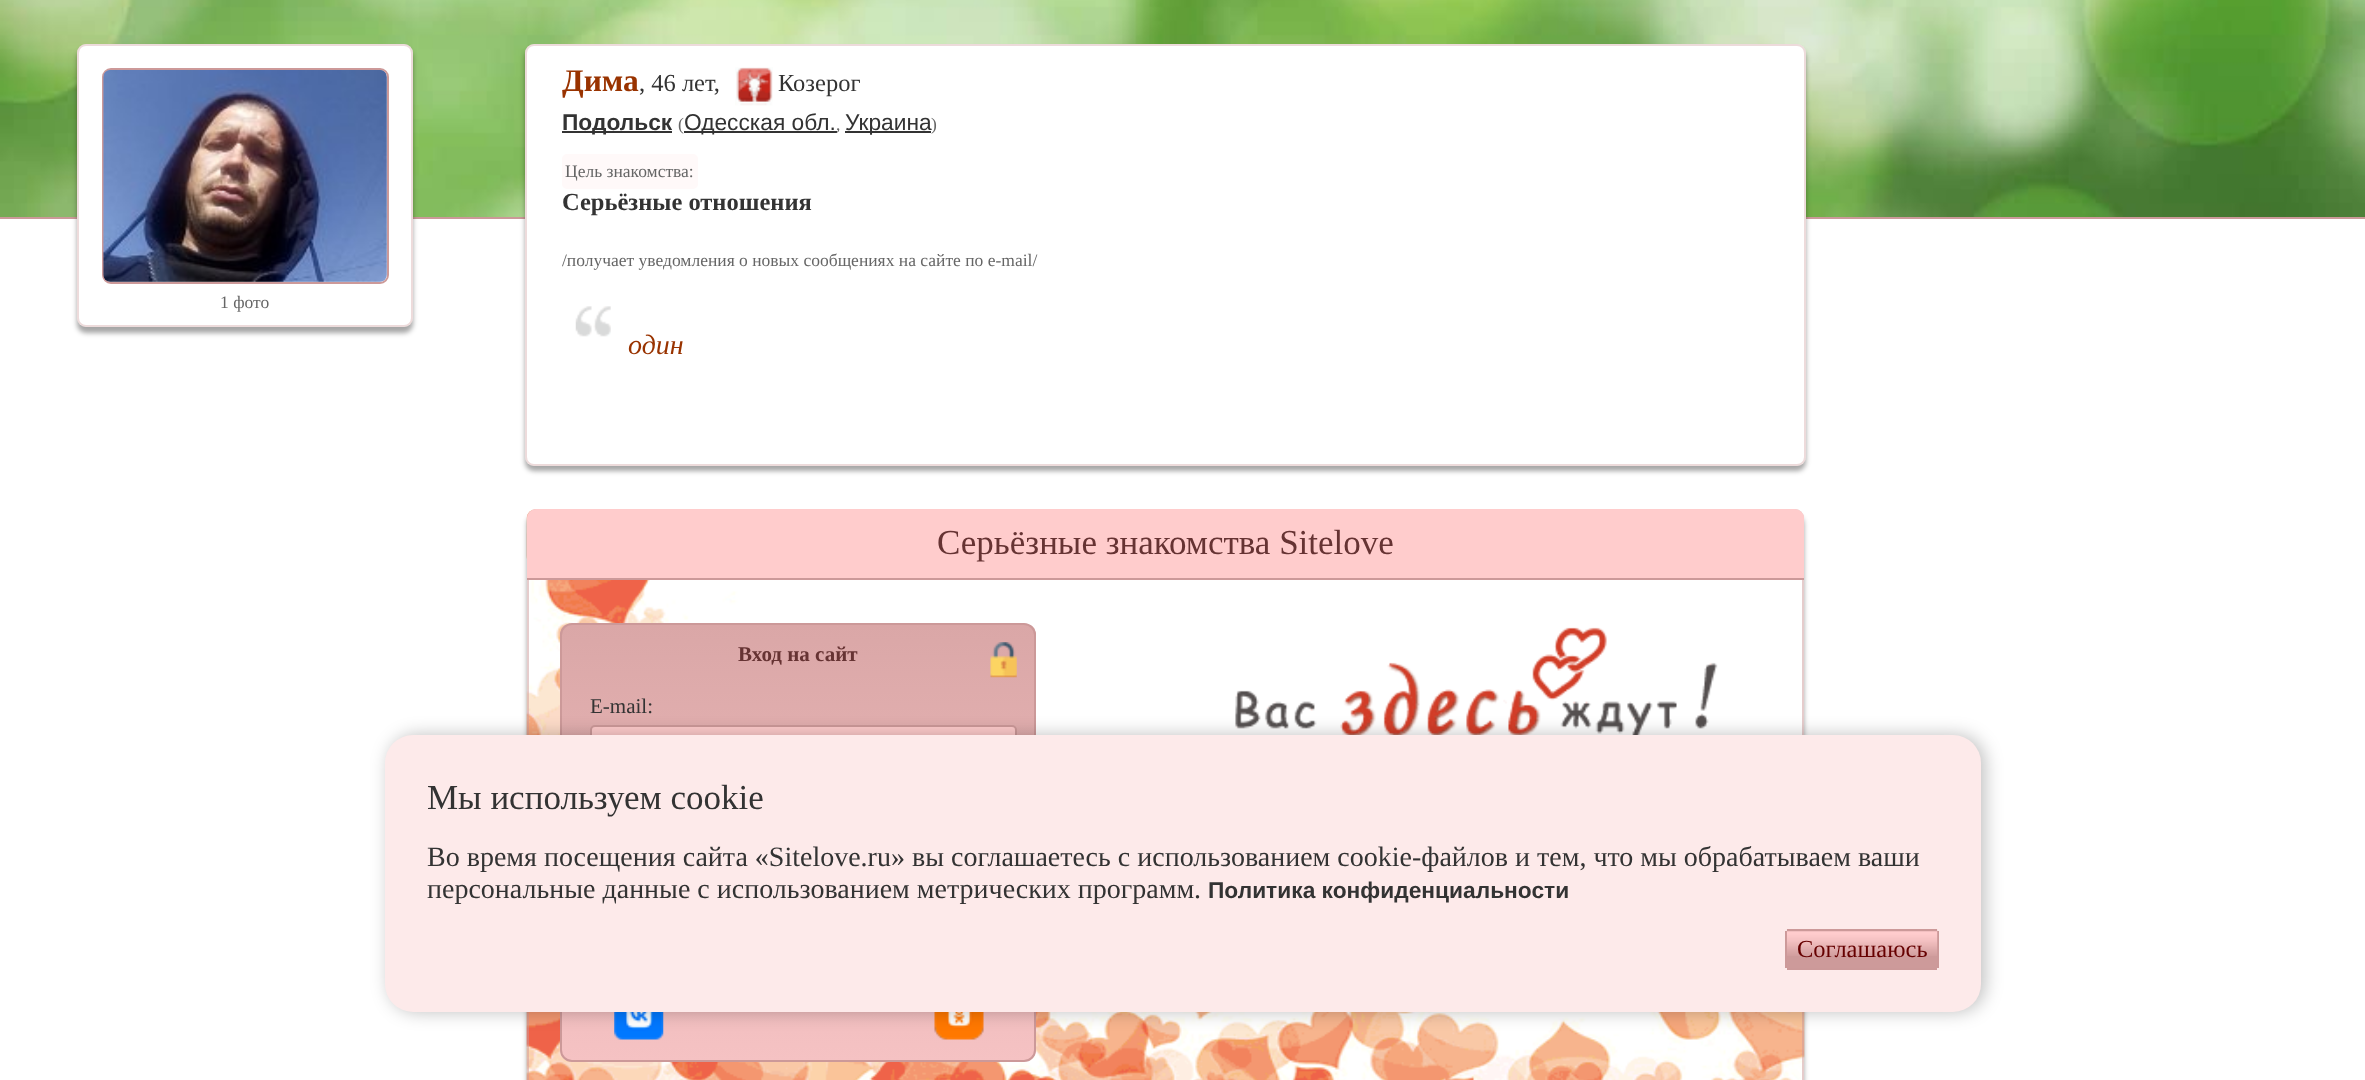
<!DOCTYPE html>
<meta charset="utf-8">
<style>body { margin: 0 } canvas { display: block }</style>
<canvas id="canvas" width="2365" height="1080"></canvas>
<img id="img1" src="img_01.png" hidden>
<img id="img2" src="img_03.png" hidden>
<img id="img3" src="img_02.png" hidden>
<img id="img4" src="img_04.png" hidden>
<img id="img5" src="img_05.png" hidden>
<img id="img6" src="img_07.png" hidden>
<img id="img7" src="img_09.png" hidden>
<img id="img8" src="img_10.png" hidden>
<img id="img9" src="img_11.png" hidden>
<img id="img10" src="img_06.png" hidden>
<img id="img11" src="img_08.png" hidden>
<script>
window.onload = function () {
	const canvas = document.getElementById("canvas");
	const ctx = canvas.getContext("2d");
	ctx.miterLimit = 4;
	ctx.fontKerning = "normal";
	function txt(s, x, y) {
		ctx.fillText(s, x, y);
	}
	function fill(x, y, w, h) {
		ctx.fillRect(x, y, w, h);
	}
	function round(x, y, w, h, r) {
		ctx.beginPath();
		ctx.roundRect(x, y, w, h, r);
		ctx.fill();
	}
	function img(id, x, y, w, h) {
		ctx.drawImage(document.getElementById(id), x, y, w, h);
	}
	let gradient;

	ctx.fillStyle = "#FFFFFF";
	fill(0, 0, 2365, 1080);
	img("img1", 0, 0, 2365, 217);
	ctx.fillStyle = "#CC9999";
	fill(0, 217, 2365, 2);
	ctx.fillStyle = "rgba(0, 0, 0, 0.35)";
	ctx.filter = "blur(2.5px)";
	ctx.beginPath();
	ctx.roundRect(77, 49, 336, 284, 9);
	ctx.fill();
	ctx.filter = "none";
	ctx.fillStyle = "#FFFFFF";
	round(77, 44, 336, 283, 9);
	ctx.beginPath();
	ctx.roundRect(78, 45, 334, 281, 8);
	ctx.strokeStyle = "rgba(204, 153, 153, 0.35)";
	ctx.lineWidth = 2;
	ctx.stroke();
	img("img2", 104, 70, 283, 212);
	ctx.beginPath();
	ctx.roundRect(103, 69, 285, 214, 8);
	ctx.strokeStyle = "#CC9999";
	ctx.stroke();
	img("img3", 103, 70, 284, 212);
	ctx.fillStyle = "rgba(0, 0, 0, 0.35)";
	ctx.filter = "blur(2.5px)";
	ctx.beginPath();
	ctx.roundRect(525, 49, 1281, 422, 9);
	ctx.fill();
	ctx.filter = "none";
	ctx.fillStyle = "#FFFFFF";
	round(525, 44, 1281, 422, 9);
	ctx.beginPath();
	ctx.roundRect(526, 45, 1279, 420, 8);
	ctx.strokeStyle = "rgba(204, 153, 153, 0.35)";
	ctx.stroke();
	img("img4", 735, 67, 38, 39);
	ctx.fillStyle = "#333333";
	fill(562, 131, 110, 2);
	fill(684, 131, 153, 2);
	fill(845, 131, 86, 2);
	ctx.fillStyle = "#FFF9F9";
	round(562, 154, 136, 35, 5);
	img("img5", 575, 306, 36, 31);
	img("img6", 526, 509, 1279, 571);
	ctx.save();
	ctx.beginPath();
	ctx.moveTo(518, 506);
	ctx.lineTo(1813, 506);
	ctx.lineTo(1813, 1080);
	ctx.lineTo(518, 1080);
	ctx.closePath();
	ctx.moveTo(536, 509);
	ctx.lineTo(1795, 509);
	ctx.bezierCurveTo(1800, 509, 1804, 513, 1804, 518);
	ctx.lineTo(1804, 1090);
	ctx.bezierCurveTo(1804, 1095, 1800, 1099, 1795, 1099);
	ctx.lineTo(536, 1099);
	ctx.bezierCurveTo(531, 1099, 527, 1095, 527, 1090);
	ctx.lineTo(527, 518);
	ctx.bezierCurveTo(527, 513, 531, 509, 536, 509);
	ctx.closePath();
	ctx.clip("evenodd");
	ctx.fillStyle = "rgba(0, 0, 0, 0.35)";
	ctx.filter = "blur(2.5px)";
	ctx.beginPath();
	ctx.roundRect(527, 515, 1277, 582, 9);
	ctx.fill();
	ctx.filter = "none";
	ctx.restore();
	ctx.beginPath();
	ctx.roundRect(528, 510, 1275, 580, 8);
	ctx.strokeStyle = "rgba(204, 153, 153, 0.5)";
	ctx.stroke();
	ctx.save();
	ctx.beginPath();
	ctx.roundRect(560, 623, 476, 439, 12);
	ctx.clip();
	gradient = ctx.createLinearGradient(798, 625, 798, 1061);
	gradient.addColorStop(0, "#DAA7A7");
	gradient.addColorStop(1, "#F5C2C3");
	ctx.fillStyle = gradient;
	fill(560, 625, 476, 436);
	ctx.restore();
	ctx.beginPath();
	ctx.roundRect(561, 624, 474, 437, 11);
	ctx.strokeStyle = "#CC9999";
	ctx.stroke();
	ctx.fillStyle = "#FFCCCC";
	ctx.beginPath();
	ctx.roundRect(591, 726, 425, 41, 4);
	ctx.fill();
	ctx.stroke();
	img("img7", 614, 1012, 50, 28);
	img("img8", 934, 1012, 50, 28);
	img("img9", 1235, 627, 483, 108);
	ctx.fillStyle = "rgba(0, 0, 0, 0.25)";
	ctx.filter = "blur(9px)";
	ctx.beginPath();
	ctx.roundRect(389, 735, 1596, 277, 28);
	ctx.fill();
	ctx.filter = "none";
	ctx.fillStyle = "#FDEAEA";
	round(385, 735, 1596, 277, 28);
	ctx.fillStyle = "#CC9999";
	fill(1937, 931, 2, 37);
	fill(1785, 931, 2, 37);
	img("img10", 1786, 929, 152, 27);
	ctx.fillStyle = "#CD9A9A";
	fill(1787, 956, 150, 12);
	ctx.fillStyle = "#CC9999";
	fill(1787, 929, 150, 2);
	fill(1787, 968, 150, 2);
	ctx.fillStyle = "#FFCCCC";
	ctx.beginPath();
	ctx.roundRect(527, 509, 1277, 70, [9, 9, 0, 0]);
	ctx.fill();
	ctx.fillStyle = "#CC9999";
	fill(527, 578, 1277, 2);
	img("img11", 990, 642, 27, 36);
	ctx.font = "17.5px Liberation Serif";
	ctx.fillStyle = "#666666";
	txt("1 фото", 220, 308);
	ctx.font = "bold 31.5px Liberation Serif";
	ctx.fillStyle = "#993300";
	txt("Дима", 562, 91);
	ctx.font = "24.5px Liberation Serif";
	ctx.fillStyle = "#333333";
	txt(", 46 лет,", 639, 91);
	txt("Козерог", 778, 91);
	ctx.font = "bold 22.75px Liberation Sans";
	txt("Подольск", 562, 130);
	ctx.font = "17.5px Liberation Serif";
	ctx.fillStyle = "#666666";
	txt("(", 678, 130);
	ctx.font = "22.75px Liberation Sans";
	ctx.fillStyle = "#333333";
	txt("Одесская обл.", 684, 130);
	ctx.font = "17.5px Liberation Serif";
	ctx.fillStyle = "#666666";
	txt(",", 836, 130);
	ctx.font = "22.75px Liberation Sans";
	ctx.fillStyle = "#333333";
	txt("Украина", 845, 130);
	ctx.font = "17.5px Liberation Serif";
	ctx.fillStyle = "#666666";
	txt(")", 931, 130);
	txt("Цель знакомства:", 565, 177);
	ctx.font = "bold 24.5px Liberation Serif";
	ctx.fillStyle = "#333333";
	txt("Серьёзные отношения", 562, 210);
	ctx.font = "17.5px Liberation Serif";
	ctx.fillStyle = "#666666";
	txt("/получает уведомления о новых сообщениях на сайте по e-mail/", 562, 266);
	ctx.font = "italic 28px Liberation Serif";
	ctx.fillStyle = "#993300";
	txt("один", 628, 354);
	ctx.font = "35px Liberation Serif";
	ctx.fillStyle = "#333333";
	txt("Мы используем сookie", 427, 809);
	ctx.font = "28px Liberation Serif";
	txt("Во время посещения сайта «Sitelove.ru» вы соглашаетесь с использованием cookie-файлов и тем, что мы обрабатываем ваши", 427, 866);
	txt("персональные данные с использованием метрических программ.", 427, 898);
	ctx.font = "bold 22.75px Liberation Sans";
	txt("Политика конфиденциальности", 1208, 898);
	ctx.font = "24.5px Liberation Serif";
	ctx.fillStyle = "#660000";
	txt("Соглашаюсь", 1797, 957);
	ctx.font = "35px Liberation Serif";
	ctx.fillStyle = "#663333";
	txt("Серьёзные знакомства Sitelove", 937, 554);
	ctx.font = "bold 21px Liberation Serif";
	txt("Вход на сайт", 738, 661);
	ctx.font = "21px Liberation Serif";
	ctx.fillStyle = "#333333";
	txt("E-mail:", 590, 713);
};
</script>
